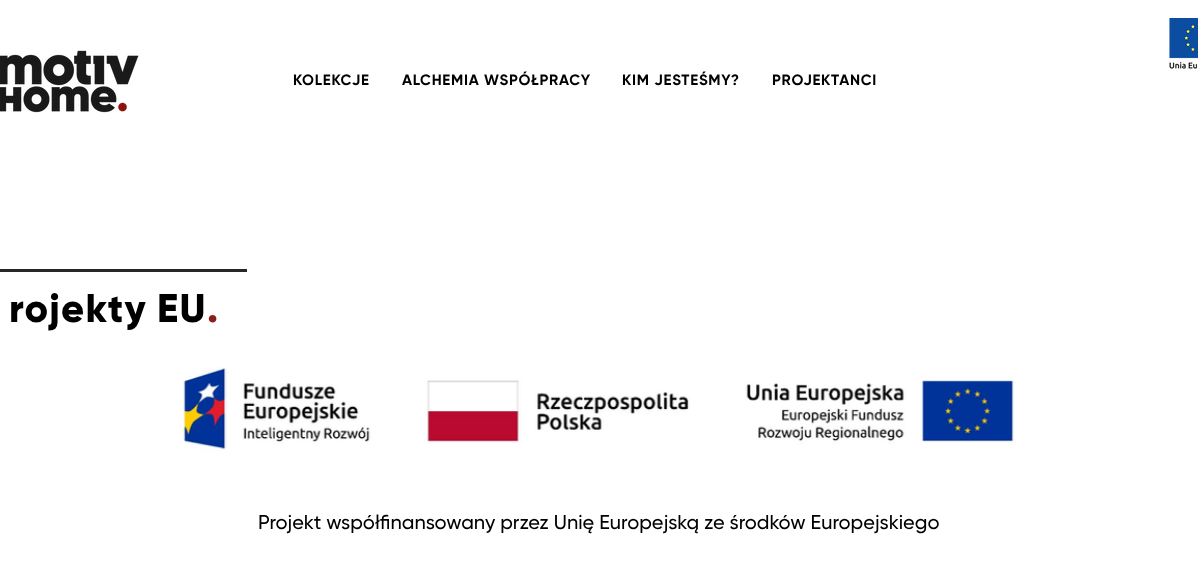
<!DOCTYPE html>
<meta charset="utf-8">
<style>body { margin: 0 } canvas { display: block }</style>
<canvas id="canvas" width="1198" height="561"></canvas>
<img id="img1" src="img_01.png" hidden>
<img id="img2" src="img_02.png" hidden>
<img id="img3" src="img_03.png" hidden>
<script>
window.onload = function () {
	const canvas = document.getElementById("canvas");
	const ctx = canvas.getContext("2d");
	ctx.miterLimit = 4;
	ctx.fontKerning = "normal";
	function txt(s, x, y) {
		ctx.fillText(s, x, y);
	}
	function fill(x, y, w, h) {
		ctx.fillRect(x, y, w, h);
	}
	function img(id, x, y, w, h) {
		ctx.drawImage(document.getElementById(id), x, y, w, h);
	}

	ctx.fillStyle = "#FFFFFF";
	fill(0, 0, 1198, 561);
	img("img1", 1169, 18, 29, 51);
	img("img2", 0, 50, 139, 63);
	ctx.fillStyle = "#282626";
	fill(0, 269, 247, 3);
	img("img3", 183, 367, 833, 84);
	ctx.letterSpacing = "0.75px";
	ctx.font = "bold 15px Gilroy";
	ctx.fillStyle = "#000000";
	txt("KOLEKCJE", 293, 85);
	txt("ALCHEMIA WSPÓŁPRACY", 402, 85);
	txt("KIM JESTEŚMY?", 622, 85);
	txt("PROJEKTANCI", 772, 85);
	ctx.letterSpacing = "1.25px";
	ctx.wordSpacing = "-1px";
	ctx.font = "800 40px Gilroy";
	txt("rojekty EU", 9, 322);
	ctx.wordSpacing = "0px";
	ctx.fillStyle = "#8C1D1A";
	txt(".", 207, 322);
	ctx.letterSpacing = "0px";
	ctx.font = "500 20px Gilroy";
	ctx.fillStyle = "#000000";
	txt("Projekt współfinansowany przez Unię Europejską ze środków Europejskiego", 258, 529);
};
</script>
